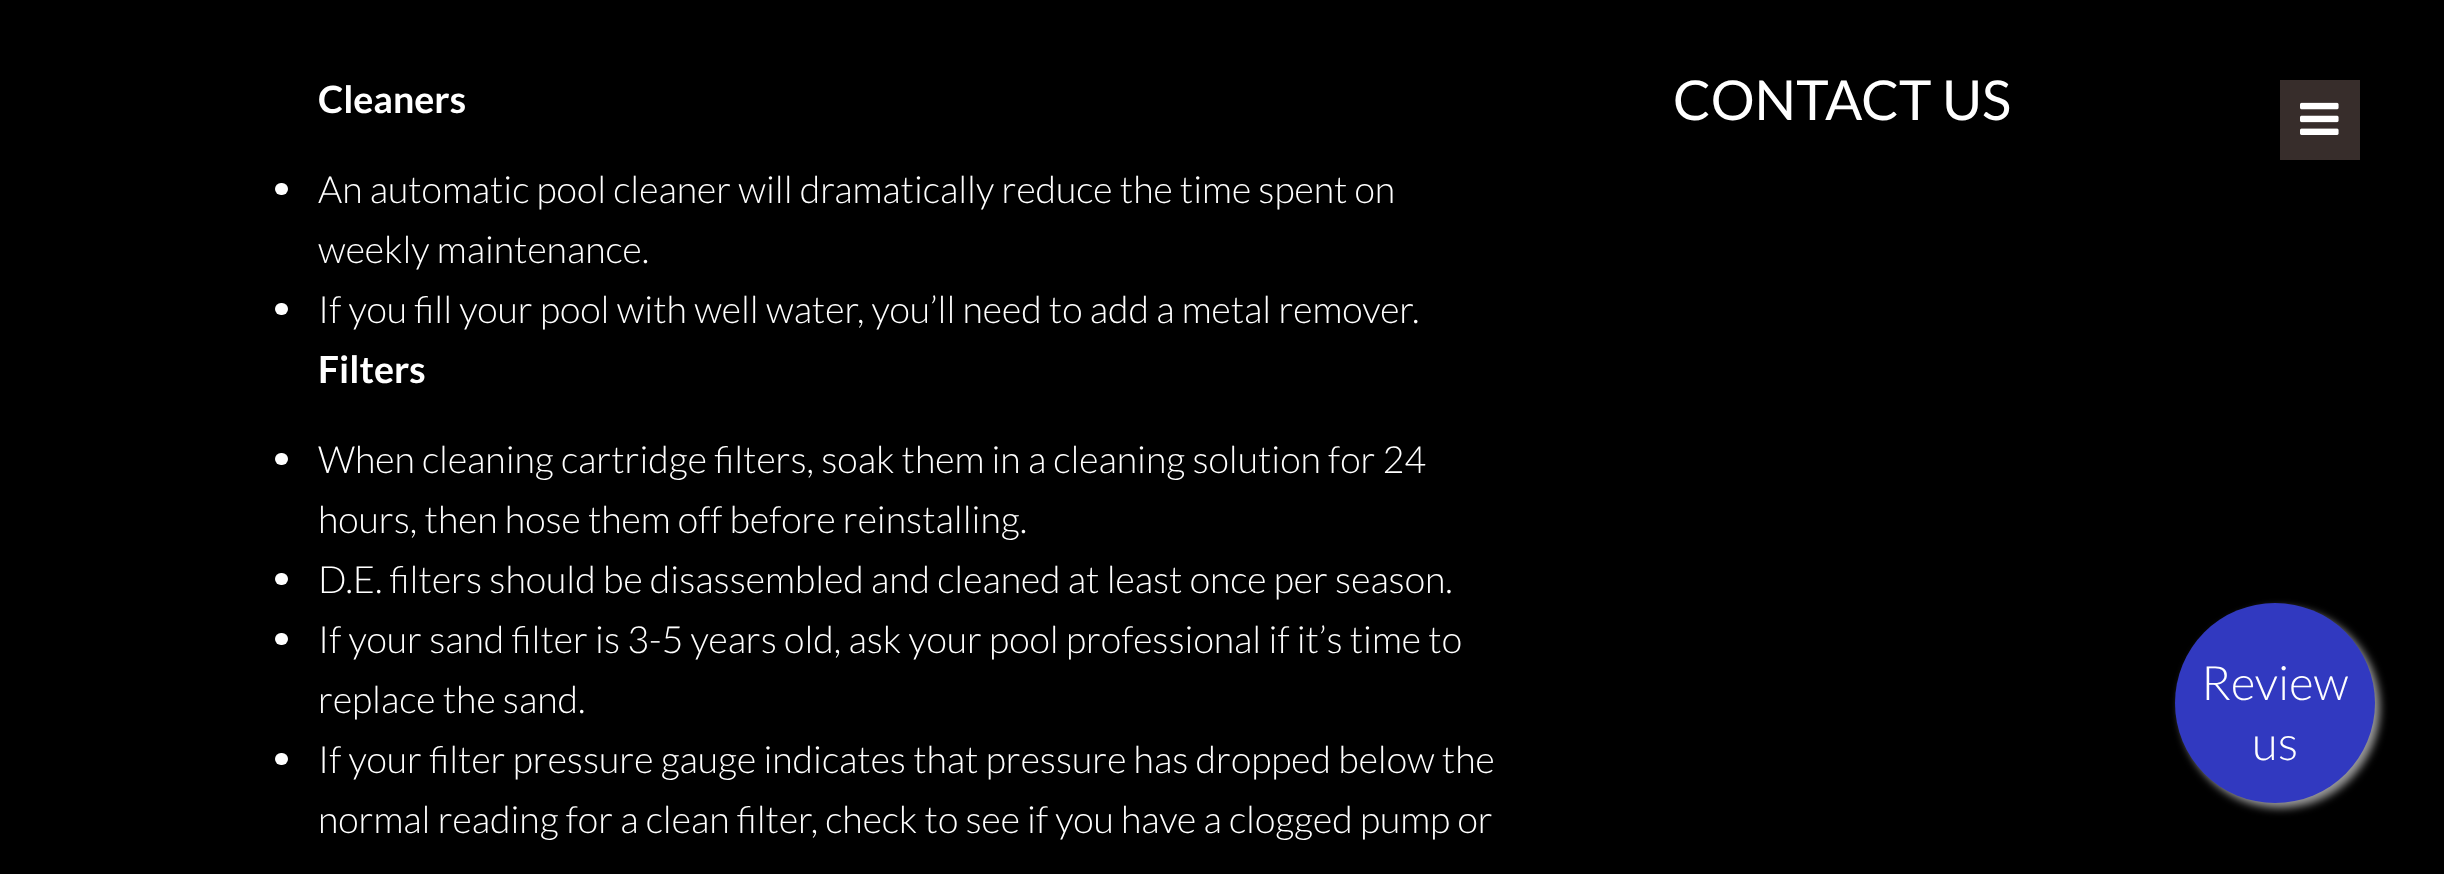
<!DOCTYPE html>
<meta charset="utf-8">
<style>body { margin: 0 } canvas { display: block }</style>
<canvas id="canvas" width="2444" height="874"></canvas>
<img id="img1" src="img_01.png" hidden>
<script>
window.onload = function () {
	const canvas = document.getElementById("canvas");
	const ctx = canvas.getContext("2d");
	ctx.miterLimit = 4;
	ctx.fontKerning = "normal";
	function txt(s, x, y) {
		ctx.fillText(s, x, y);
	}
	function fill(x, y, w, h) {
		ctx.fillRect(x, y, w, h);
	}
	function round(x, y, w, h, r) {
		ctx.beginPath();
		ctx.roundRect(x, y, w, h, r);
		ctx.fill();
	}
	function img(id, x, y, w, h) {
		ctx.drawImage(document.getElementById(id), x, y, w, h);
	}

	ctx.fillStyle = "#000000";
	fill(0, 0, 2444, 874);
	ctx.fillStyle = "#FFFFFF";
	round(275, 183, 13, 12, 6);
	round(275, 303, 13, 12, 6);
	round(275, 453, 13, 12, 6);
	round(275, 573, 13, 12, 6);
	round(275, 633, 13, 12, 6);
	round(275, 753, 13, 12, 6);
	ctx.fillStyle = "#372D2B";
	fill(2280, 80, 80, 80);
	img("img1", 2300, 102, 39, 33);
	ctx.fillStyle = "#999999";
	ctx.filter = "blur(4px)";
	ctx.beginPath();
	ctx.roundRect(2180, 608, 200, 200, 100);
	ctx.fill();
	ctx.filter = "none";
	ctx.fillStyle = "#3139C0";
	ctx.beginPath();
	ctx.arc(2275, 703, 100, 0, Math.PI * 2);
	ctx.fill();
	ctx.font = "bold 37.5px Lato";
	ctx.fillStyle = "#FFFFFF";
	txt("Cleaners", 318, 113);
	ctx.font = "300 37.5px Lato";
	txt("An automatic pool cleaner will dramatically reduce the time spent on", 318, 203);
	txt("weekly maintenance.", 318, 263);
	txt("If you fill your pool with well water, you’ll need to add a metal remover.", 318, 323);
	ctx.font = "bold 37.5px Lato";
	txt("Filters", 318, 383);
	ctx.font = "300 37.5px Lato";
	txt("When cleaning cartridge filters, soak them in a cleaning solution for 24", 318, 473);
	txt("hours, then hose them off before reinstalling.", 318, 533);
	txt("D.E. filters should be disassembled and cleaned at least once per season.", 318, 593);
	txt("If your sand filter is 3-5 years old, ask your pool professional if it’s time to", 318, 653);
	txt("replace the sand.", 318, 713);
	txt("If your filter pressure gauge indicates that pressure has dropped below the", 318, 773);
	txt("normal reading for a clean filter, check to see if you have a clogged pump or", 318, 833);
	ctx.font = "55px Lato";
	txt("CONTACT US", 1673, 120);
	ctx.font = "300 47.5px Lato";
	txt("Review", 2201, 700);
	txt("us", 2252, 760);
};
</script>
